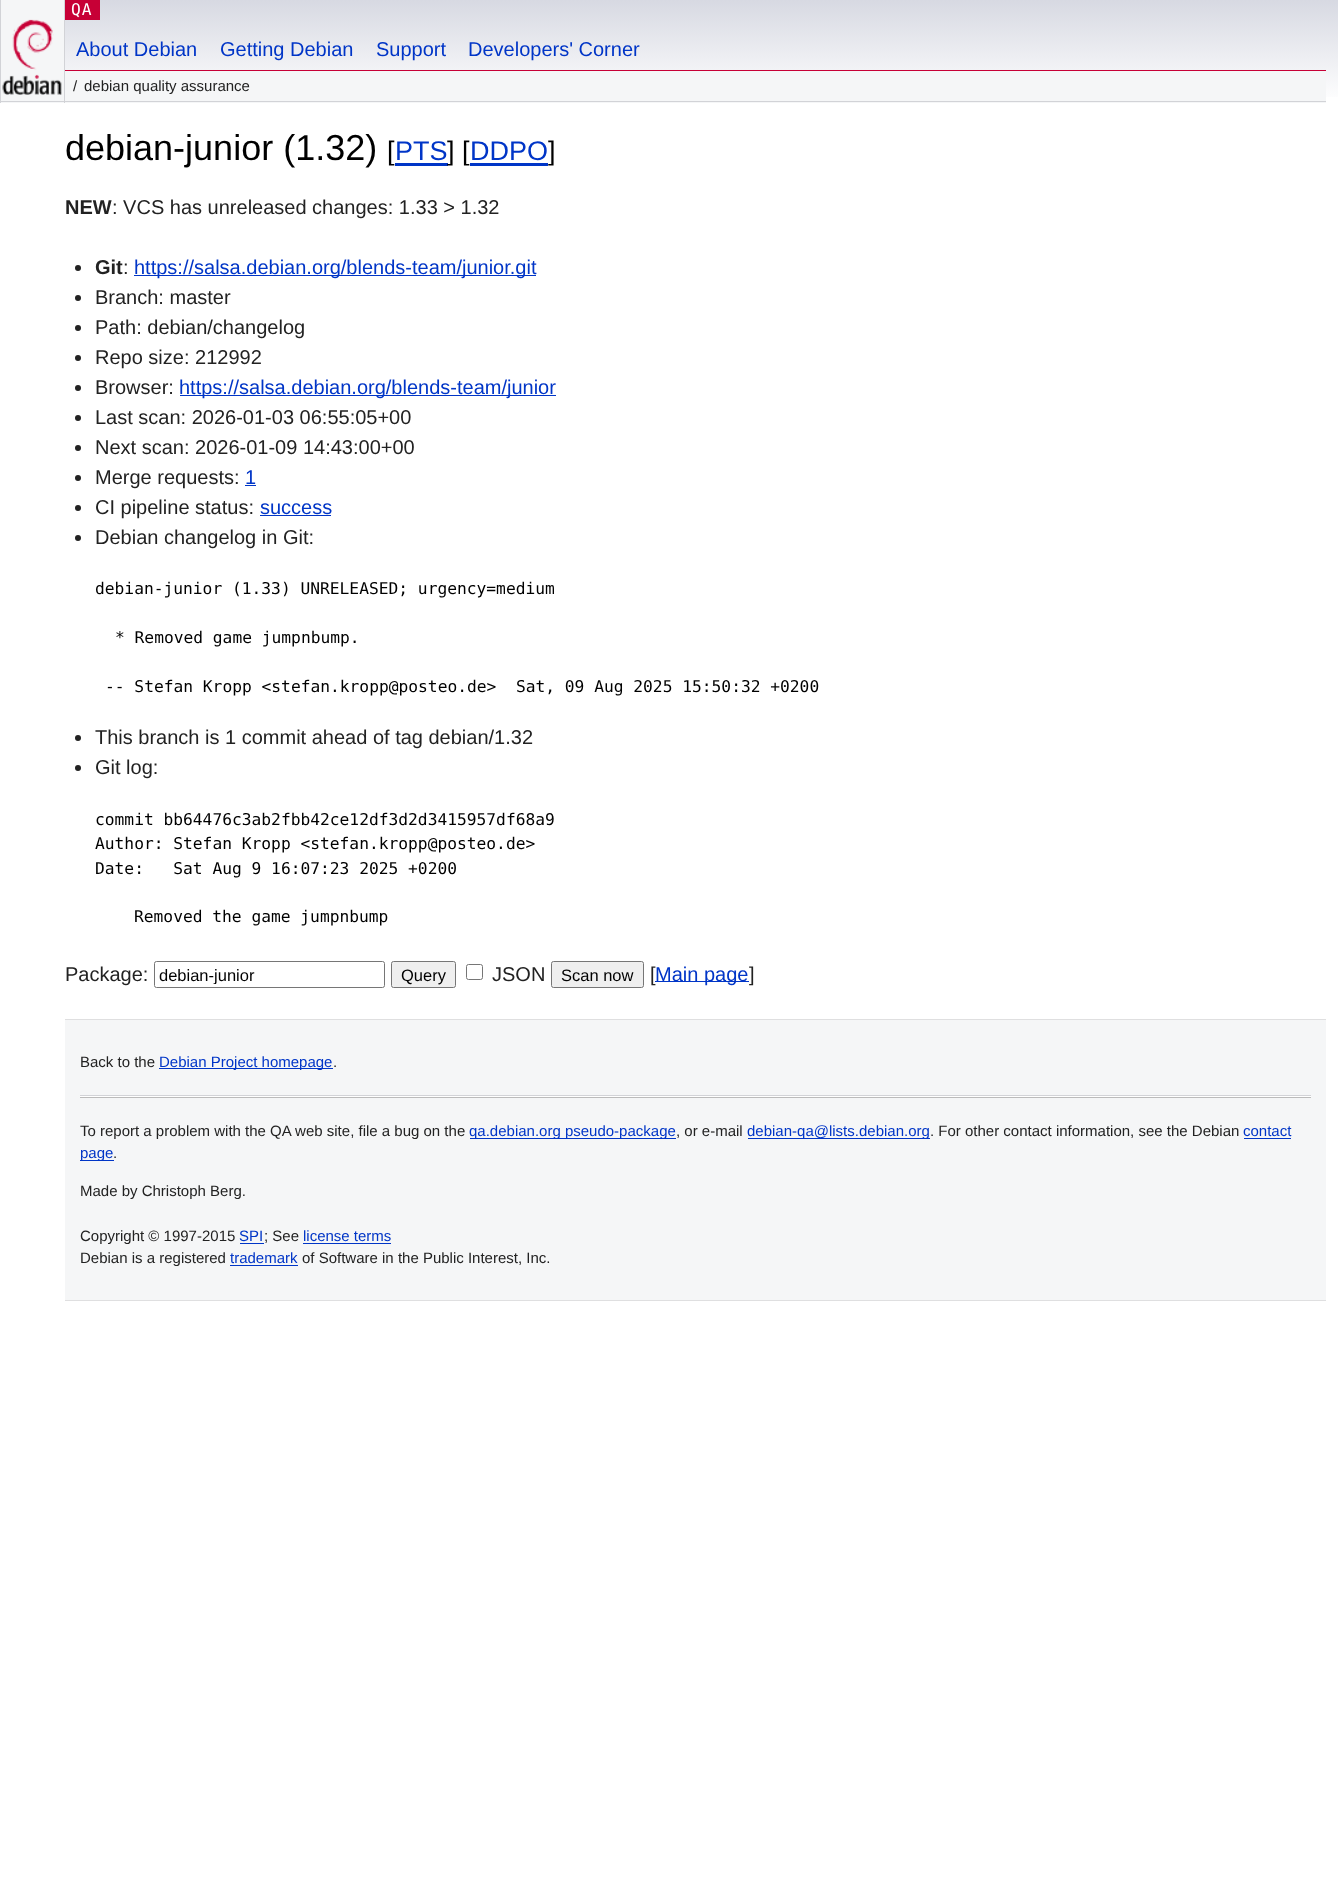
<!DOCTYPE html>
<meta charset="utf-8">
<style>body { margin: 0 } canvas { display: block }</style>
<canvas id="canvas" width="1338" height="1890"></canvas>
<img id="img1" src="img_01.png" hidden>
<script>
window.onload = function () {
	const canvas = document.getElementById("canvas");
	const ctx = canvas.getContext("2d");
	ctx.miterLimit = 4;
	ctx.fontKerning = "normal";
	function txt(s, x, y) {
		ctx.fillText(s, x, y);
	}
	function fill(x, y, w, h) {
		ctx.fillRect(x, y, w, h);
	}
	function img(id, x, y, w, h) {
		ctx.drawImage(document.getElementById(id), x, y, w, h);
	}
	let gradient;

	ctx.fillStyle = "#FFFFFF";
	fill(0, 0, 1338, 1890);
	gradient = ctx.createLinearGradient(669, 0, 669, 103);
	gradient.addColorStop(0, "#D7D9E2");
	gradient.addColorStop(1, "#FFFFFF");
	ctx.fillStyle = gradient;
	fill(65, 0, 1273, 97);
	ctx.fillStyle = "#F5F6F7";
	fill(1, 0, 63, 103);
	ctx.fillStyle = "#D2D3D7";
	fill(64, 0, 1, 103);
	fill(0, 101, 65, 1);
	fill(0, 0, 1, 103);
	img("img1", 2, 19, 60, 76);
	ctx.fillStyle = "#C70036";
	fill(65, 0, 35, 20);
	fill(65, 70, 1261, 1);
	ctx.fillStyle = "#F5F6F7";
	fill(65, 71, 1261, 32);
	ctx.fillStyle = "#D2D3D7";
	fill(65, 101, 1261, 1);
	ctx.fillStyle = "#0035C7";
	fill(395, 163, 53, 3);
	fill(470, 163, 78, 3);
	ctx.fillStyle = "#222222";
	ctx.beginPath();
	ctx.arc(78, 268, 3, 0, Math.PI * 2);
	ctx.fill();
	ctx.fillStyle = "#0035C7";
	fill(134, 275, 402, 1);
	ctx.fillStyle = "#222222";
	ctx.beginPath();
	ctx.arc(78, 298, 3, 0, Math.PI * 2);
	ctx.fill();
	ctx.beginPath();
	ctx.arc(78, 328, 3, 0, Math.PI * 2);
	ctx.fill();
	ctx.beginPath();
	ctx.arc(78, 358, 3, 0, Math.PI * 2);
	ctx.fill();
	ctx.beginPath();
	ctx.arc(78, 388, 3, 0, Math.PI * 2);
	ctx.fill();
	ctx.fillStyle = "#0035C7";
	fill(180, 395, 376, 1);
	ctx.fillStyle = "#222222";
	ctx.beginPath();
	ctx.arc(78, 418, 3, 0, Math.PI * 2);
	ctx.fill();
	ctx.beginPath();
	ctx.arc(78, 448, 3, 0, Math.PI * 2);
	ctx.fill();
	ctx.beginPath();
	ctx.arc(78, 478, 3, 0, Math.PI * 2);
	ctx.fill();
	ctx.fillStyle = "#0035C7";
	fill(245, 485, 11, 1);
	ctx.fillStyle = "#222222";
	ctx.beginPath();
	ctx.arc(78, 508, 3, 0, Math.PI * 2);
	ctx.fill();
	ctx.fillStyle = "#0035C7";
	fill(260, 515, 71, 1);
	ctx.fillStyle = "#222222";
	ctx.beginPath();
	ctx.arc(78, 538, 3, 0, Math.PI * 2);
	ctx.fill();
	ctx.beginPath();
	ctx.arc(78, 738, 3, 0, Math.PI * 2);
	ctx.fill();
	ctx.beginPath();
	ctx.arc(78, 768, 3, 0, Math.PI * 2);
	ctx.fill();
	ctx.beginPath();
	ctx.roundRect(154.5, 961.5, 230, 26, 2);
	ctx.strokeStyle = "#767676";
	ctx.stroke();
	ctx.fillStyle = "#EFEFEF";
	ctx.beginPath();
	ctx.roundRect(391.5, 961.5, 64, 26, 2);
	ctx.fill();
	ctx.stroke();
	ctx.beginPath();
	ctx.roundRect(466.5, 964.5, 16, 15, 2);
	ctx.stroke();
	ctx.beginPath();
	ctx.roundRect(551.5, 961.5, 92, 26, 2);
	ctx.fill();
	ctx.stroke();
	ctx.fillStyle = "#F5F6F7";
	fill(65, 1020, 1261, 280);
	ctx.fillStyle = "#DFDFE0";
	fill(65, 1019, 1261, 1);
	fill(65, 1300, 1261, 1);
	ctx.fillStyle = "#0035C7";
	fill(159, 1068, 174, 1);
	ctx.fillStyle = "#BBBBBB";
	fill(80, 1097, 1231, 1);
	ctx.fillStyle = "#D2D3D7";
	fill(80, 1095, 1231, 1);
	ctx.fillStyle = "#FFFFFF";
	fill(80, 1096, 1231, 1);
	ctx.fillStyle = "#0035C7";
	fill(470, 1138, 206, 1);
	fill(748, 1138, 182, 1);
	fill(1244, 1138, 47, 1);
	fill(80, 1160, 34, 1);
	fill(240, 1243, 24, 1);
	fill(303, 1243, 88, 1);
	fill(230, 1265, 68, 1);
	ctx.letterSpacing = "1px";
	ctx.font = "16.25px DejaVu Sans Mono";
	ctx.fillStyle = "#FFFFFF";
	txt("QA", 71, 15);
	ctx.letterSpacing = "0px";
	ctx.font = "20px Liberation Sans";
	ctx.fillStyle = "#0035C7";
	txt("About Debian", 76, 56);
	txt("Getting Debian", 220, 56);
	txt("Support", 376, 56);
	txt("Developers' Corner", 468, 56);
	ctx.font = "15px Liberation Sans";
	ctx.fillStyle = "#222222";
	txt("/", 73, 91);
	txt("debian quality assurance", 84, 91);
	ctx.font = "36px Liberation Sans";
	ctx.fillStyle = "#000000";
	txt("debian-junior (1.32)", 65, 160);
	ctx.font = "27px Liberation Sans";
	txt("[", 387, 160);
	ctx.fillStyle = "#0035C7";
	txt("PTS", 395, 160);
	ctx.fillStyle = "#000000";
	txt("] [", 447, 160);
	ctx.fillStyle = "#0035C7";
	txt("DDPO", 470, 160);
	ctx.fillStyle = "#000000";
	txt("]", 548, 160);
	ctx.font = "bold 20px Liberation Sans";
	ctx.fillStyle = "#222222";
	txt("NEW", 65, 214);
	ctx.font = "20px Liberation Sans";
	txt(": VCS has unreleased changes: 1.33 > 1.32", 112, 214);
	ctx.font = "bold 20px Liberation Sans";
	txt("Git", 95, 274);
	ctx.font = "20px Liberation Sans";
	txt(":", 123, 274);
	ctx.fillStyle = "#0035C7";
	txt("https://salsa.debian.org/blends-team/junior.git", 134, 274);
	ctx.fillStyle = "#222222";
	txt("Branch: master", 95, 304);
	txt("Path: debian/changelog", 95, 334);
	txt("Repo size: 212992", 95, 364);
	txt("Browser:", 95, 394);
	ctx.fillStyle = "#0035C7";
	txt("https://salsa.debian.org/blends-team/junior", 179, 394);
	ctx.fillStyle = "#222222";
	txt("Last scan: 2026-01-03 06:55:05+00", 95, 424);
	txt("Next scan: 2026-01-09 14:43:00+00", 95, 454);
	txt("Merge requests:", 95, 484);
	ctx.fillStyle = "#0035C7";
	txt("1", 245, 484);
	ctx.fillStyle = "#222222";
	txt("CI pipeline status:", 95, 514);
	ctx.fillStyle = "#0035C7";
	txt("success", 260, 514);
	ctx.fillStyle = "#222222";
	txt("Debian changelog in Git:", 95, 544);
	ctx.font = "16.25px DejaVu Sans Mono";
	ctx.fillStyle = "#000000";
	txt("debian-junior (1.33) UNRELEASED; urgency=medium", 95, 594);
	txt("* Removed game jumpnbump.", 115, 643);
	txt("-- Stefan Kropp <stefan.kropp@posteo.de>  Sat, 09 Aug 2025 15:50:32 +0200", 105, 692);
	ctx.font = "20px Liberation Sans";
	ctx.fillStyle = "#222222";
	txt("This branch is 1 commit ahead of tag debian/1.32", 95, 744);
	txt("Git log:", 95, 774);
	ctx.font = "16.25px DejaVu Sans Mono";
	ctx.fillStyle = "#000000";
	txt("commit bb64476c3ab2fbb42ce12df3d2d3415957df68a9", 95, 825);
	txt("Author: Stefan Kropp <stefan.kropp@posteo.de>", 95, 849);
	txt("Date:   Sat Aug 9 16:07:23 2025 +0200", 95, 874);
	txt("Removed the game jumpnbump", 134, 922);
	ctx.font = "20px Liberation Sans";
	ctx.fillStyle = "#222222";
	txt("Package:", 65, 981);
	ctx.save();
	ctx.beginPath();
	ctx.rect(159, 965, 221, 19);
	ctx.clip();
	ctx.font = "16.5px Liberation Sans";
	ctx.fillStyle = "#000000";
	txt("debian-junior", 159, 981);
	ctx.restore();
	ctx.font = "16.5px Liberation Sans";
	ctx.fillStyle = "#000000";
	txt("Query", 401, 981);
	ctx.font = "20px Liberation Sans";
	ctx.fillStyle = "#222222";
	txt("JSON", 492, 981);
	ctx.font = "16.5px Liberation Sans";
	ctx.fillStyle = "#000000";
	txt("Scan now", 561, 981);
	ctx.font = "20px Liberation Sans";
	ctx.fillStyle = "#222222";
	txt("[", 650, 981);
	ctx.fillStyle = "#0035C7";
	fill(655, 981, 94, 1);
	txt("Main page", 655, 981);
	ctx.fillStyle = "#222222";
	txt("]", 749, 981);
	ctx.font = "15px Liberation Sans";
	txt("Back to the", 80, 1067);
	ctx.fillStyle = "#0035C7";
	txt("Debian Project homepage", 159, 1067);
	ctx.fillStyle = "#222222";
	txt(".", 333, 1067);
	txt("To report a problem with the QA web site, file a bug on the", 80, 1136);
	ctx.fillStyle = "#0035C7";
	txt("qa.debian.org pseudo-package", 469, 1136);
	ctx.fillStyle = "#222222";
	txt(", or e-mail", 676, 1136);
	ctx.fillStyle = "#0035C7";
	txt("debian-qa@lists.debian.org", 747, 1136);
	ctx.fillStyle = "#222222";
	txt(". For other contact information, see the Debian", 930, 1136);
	ctx.fillStyle = "#0035C7";
	txt("contact", 1243, 1136);
	txt("page", 80, 1158);
	ctx.fillStyle = "#222222";
	txt(".", 113, 1158);
	txt("Made by Christoph Berg.", 80, 1196);
	txt("Copyright © 1997-2015", 80, 1241);
	ctx.fillStyle = "#0035C7";
	txt("SPI", 239, 1241);
	ctx.fillStyle = "#222222";
	txt("; See", 264, 1241);
	ctx.fillStyle = "#0035C7";
	txt("license terms", 303, 1241);
	ctx.fillStyle = "#222222";
	txt("Debian is a registered", 80, 1263);
	ctx.fillStyle = "#0035C7";
	txt("trademark", 230, 1263);
	ctx.fillStyle = "#222222";
	txt("of Software in the Public Interest, Inc.", 302, 1263);
};
</script>
